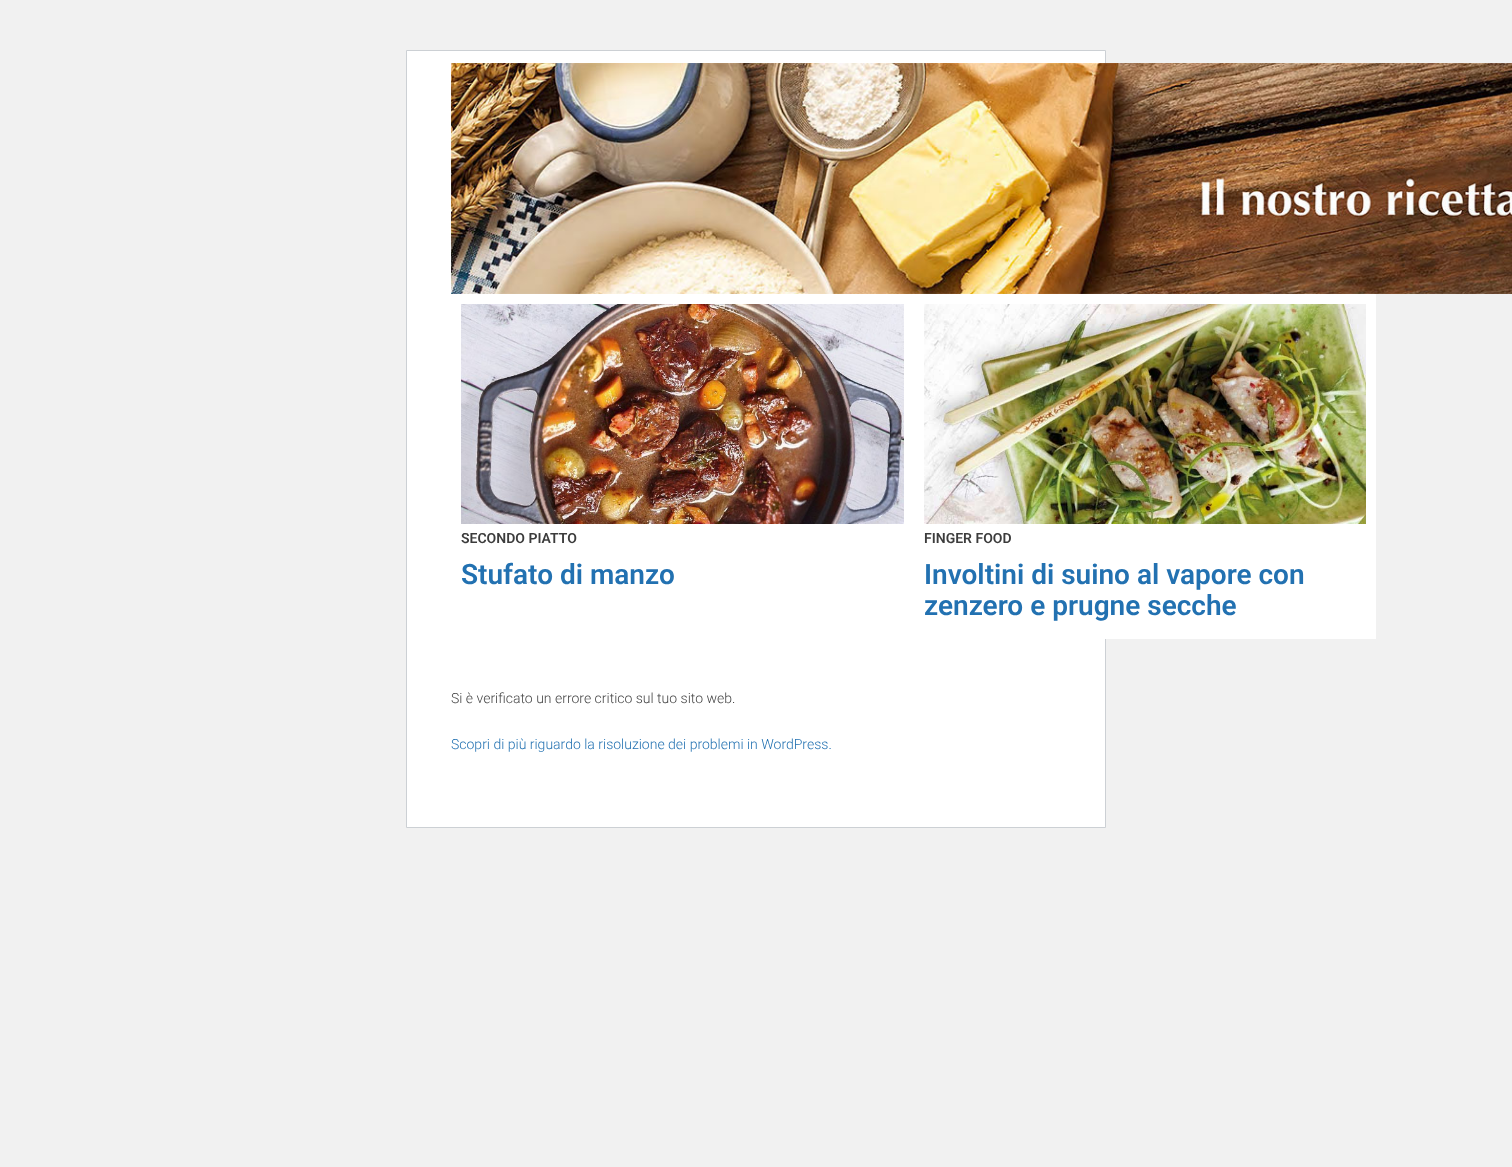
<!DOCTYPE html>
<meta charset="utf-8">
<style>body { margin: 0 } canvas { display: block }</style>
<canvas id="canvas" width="1512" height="1167"></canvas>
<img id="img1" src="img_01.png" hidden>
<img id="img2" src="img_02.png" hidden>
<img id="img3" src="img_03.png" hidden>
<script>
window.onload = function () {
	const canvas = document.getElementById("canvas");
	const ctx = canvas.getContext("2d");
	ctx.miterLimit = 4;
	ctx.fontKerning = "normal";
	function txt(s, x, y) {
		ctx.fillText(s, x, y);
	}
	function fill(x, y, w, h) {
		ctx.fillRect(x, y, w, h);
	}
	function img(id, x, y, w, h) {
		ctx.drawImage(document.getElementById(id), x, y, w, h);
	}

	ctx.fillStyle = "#F1F1F1";
	fill(0, 0, 1512, 1167);
	ctx.fillStyle = "#FFFFFF";
	ctx.beginPath();
	ctx.rect(406.5, 50.5, 699, 777);
	ctx.fill();
	ctx.strokeStyle = "#CCD0D4";
	ctx.stroke();
	img("img1", 451, 63, 1061, 231);
	img("img2", 461, 304, 443, 220);
	fill(1105, 294, 271, 345);
	img("img3", 924, 304, 442, 220);
	ctx.font = "600 14px Roboto";
	ctx.fillStyle = "#3C3C3C";
	txt("SECONDO PIATTO", 461, 543);
	ctx.font = "600 28px Roboto";
	ctx.fillStyle = "#2271B1";
	txt("Stufato di manzo", 461, 584);
	ctx.font = "600 14px Roboto";
	ctx.fillStyle = "#3C3C3C";
	txt("FINGER FOOD", 924, 543);
	ctx.font = "600 28px Roboto";
	ctx.fillStyle = "#2271B1";
	txt("Involtini di suino al vapore con", 924, 584);
	txt("zenzero e prugne secche", 924, 615);
	ctx.font = "300 14px Roboto";
	ctx.fillStyle = "#444444";
	txt("Si è verificato un errore critico sul tuo sito web.", 451, 703);
	ctx.fillStyle = "#2271B1";
	txt("Scopri di più riguardo la risoluzione dei problemi in WordPress.", 451, 749);
};
</script>
